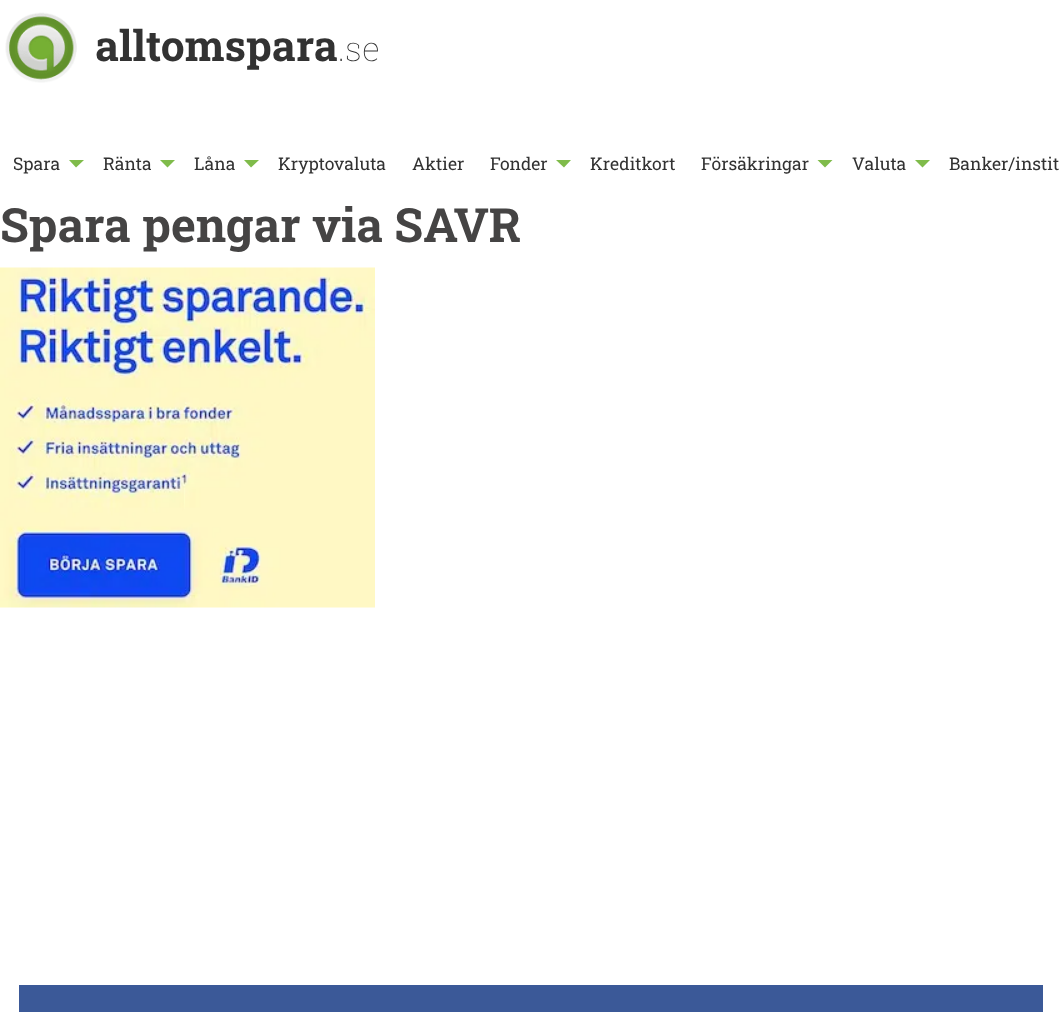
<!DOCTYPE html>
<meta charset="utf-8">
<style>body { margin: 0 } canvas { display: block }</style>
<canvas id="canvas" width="1061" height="1012"></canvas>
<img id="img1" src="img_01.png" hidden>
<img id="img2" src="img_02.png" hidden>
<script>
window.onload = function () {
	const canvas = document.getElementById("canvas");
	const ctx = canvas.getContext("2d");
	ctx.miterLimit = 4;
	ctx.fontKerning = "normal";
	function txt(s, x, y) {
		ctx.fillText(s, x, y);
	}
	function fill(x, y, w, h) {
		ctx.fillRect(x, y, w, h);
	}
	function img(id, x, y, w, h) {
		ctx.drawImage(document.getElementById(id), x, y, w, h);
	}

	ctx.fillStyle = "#FFFFFF";
	fill(0, 0, 1061, 1012);
	img("img1", 5, 12, 72, 71);
	ctx.fillStyle = "#7FBB4A";
	ctx.beginPath();
	ctx.moveTo(69, 160);
	ctx.lineTo(84, 160);
	ctx.lineTo(76, 167.5);
	ctx.closePath();
	ctx.fill();
	ctx.beginPath();
	ctx.moveTo(160, 160);
	ctx.lineTo(175, 160);
	ctx.lineTo(167.5, 167.5);
	ctx.closePath();
	ctx.fill();
	ctx.beginPath();
	ctx.moveTo(244, 160);
	ctx.lineTo(259, 160);
	ctx.lineTo(251, 167.5);
	ctx.closePath();
	ctx.fill();
	ctx.beginPath();
	ctx.moveTo(556, 160);
	ctx.lineTo(571, 160);
	ctx.lineTo(564, 167.5);
	ctx.closePath();
	ctx.fill();
	ctx.beginPath();
	ctx.moveTo(817.5, 160);
	ctx.lineTo(832.5, 160);
	ctx.lineTo(825, 167.5);
	ctx.closePath();
	ctx.fill();
	ctx.beginPath();
	ctx.moveTo(915, 160);
	ctx.lineTo(930, 160);
	ctx.lineTo(922.5, 167.5);
	ctx.closePath();
	ctx.fill();
	img("img2", 0, 267, 375, 341);
	ctx.fillStyle = "#3B5998";
	fill(19, 985, 1024, 27);
	ctx.font = "bold 42.5px Roboto Slab";
	ctx.fillStyle = "#323232";
	txt("alltomspara", 95, 61);
	ctx.font = "100 34px Roboto Slab";
	txt(".se", 338, 61);
	ctx.font = "17.5px Roboto Slab";
	txt("Spara", 13, 170);
	txt("Ränta", 103, 170);
	txt("Låna", 194, 170);
	txt("Kryptovaluta", 278, 170);
	txt("Aktier", 412, 170);
	txt("Fonder", 490, 170);
	txt("Kreditkort", 590, 170);
	txt("Försäkringar", 701, 170);
	txt("Valuta", 852, 170);
	txt("Banker/instit", 949, 170);
	ctx.font = "bold 47.25px Roboto Slab";
	ctx.fillStyle = "#454444";
	txt("Spara pengar via SAVR", 0, 242);
};
</script>
